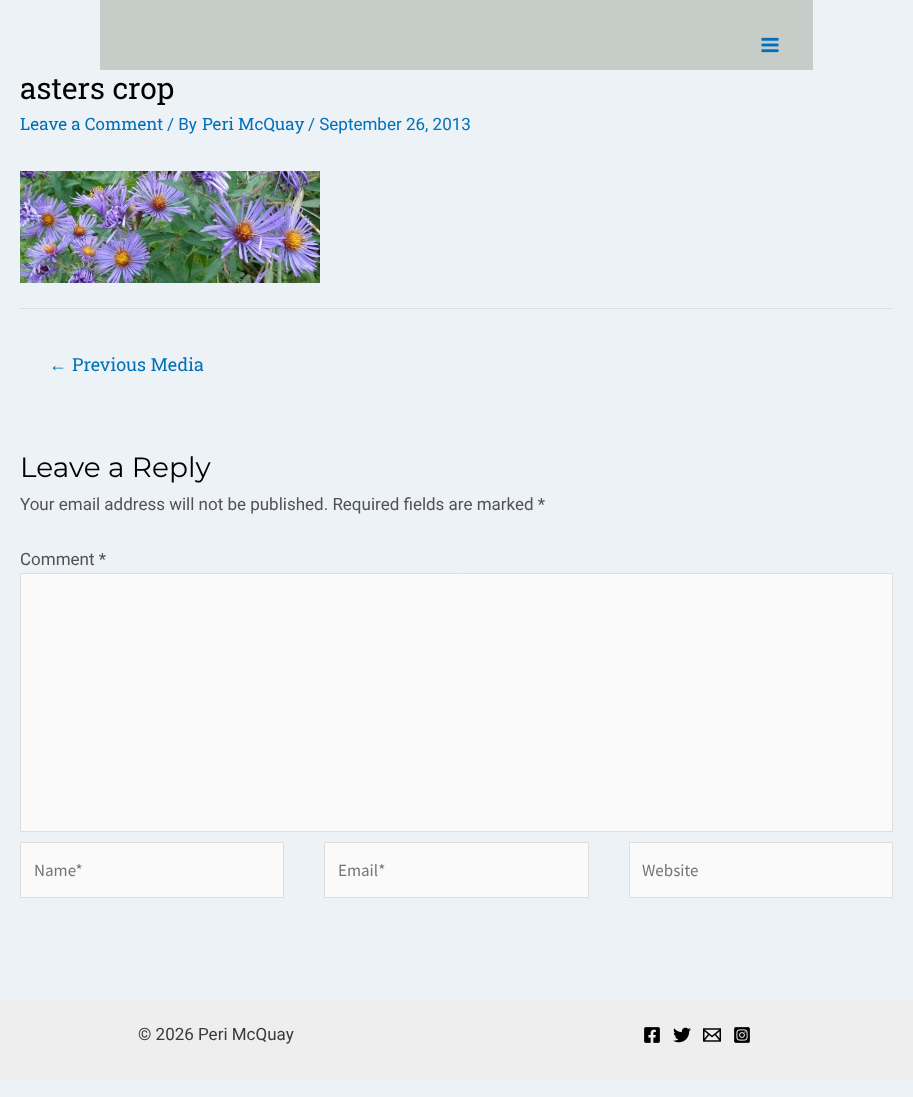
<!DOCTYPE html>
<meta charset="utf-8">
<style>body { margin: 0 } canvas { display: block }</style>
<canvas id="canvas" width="913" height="1097"></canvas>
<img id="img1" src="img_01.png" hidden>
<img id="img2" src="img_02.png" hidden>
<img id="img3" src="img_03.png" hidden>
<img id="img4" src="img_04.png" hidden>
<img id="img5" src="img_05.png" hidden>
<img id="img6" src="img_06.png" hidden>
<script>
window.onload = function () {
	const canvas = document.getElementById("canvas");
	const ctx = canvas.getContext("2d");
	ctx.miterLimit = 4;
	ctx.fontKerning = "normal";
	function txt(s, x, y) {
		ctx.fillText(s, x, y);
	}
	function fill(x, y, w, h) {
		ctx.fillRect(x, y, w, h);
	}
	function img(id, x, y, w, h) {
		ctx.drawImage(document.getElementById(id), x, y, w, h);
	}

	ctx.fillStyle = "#EDF2F7";
	fill(0, 0, 913, 1097);
	ctx.fillStyle = "#C6CCC8";
	fill(100, 0, 713, 70);
	img("img1", 761, 37, 18, 16);
	img("img2", 20, 171, 300, 112);
	ctx.fillStyle = "#DDDDDD";
	fill(20, 308, 873, 1);
	ctx.fillStyle = "#EEEEEE";
	fill(20, 415, 873, 1);
	ctx.fillStyle = "#FAFAFA";
	ctx.beginPath();
	ctx.rect(20.5, 573.5, 872, 258);
	ctx.fill();
	ctx.strokeStyle = "#DDDDDD";
	ctx.stroke();
	ctx.beginPath();
	ctx.rect(20.5, 842.5, 263, 55);
	ctx.fill();
	ctx.stroke();
	ctx.beginPath();
	ctx.rect(324.5, 842.5, 264, 55);
	ctx.fill();
	ctx.stroke();
	ctx.beginPath();
	ctx.rect(629.5, 842.5, 263, 55);
	ctx.fill();
	ctx.stroke();
	ctx.fillStyle = "#EEEEEE";
	fill(0, 999, 913, 81);
	img("img3", 644, 1027, 16, 16);
	img("img4", 673, 1027, 18, 16);
	img("img5", 703, 1028, 18, 14);
	img("img6", 734, 1027, 16, 16);
	ctx.font = "30px Roboto Slab";
	ctx.fillStyle = "#000000";
	txt("asters crop", 20, 99);
	ctx.font = "17px Roboto Slab";
	ctx.fillStyle = "#0170B9";
	txt("Leave a Comment", 20, 130);
	ctx.font = "17px Roboto";
	txt("/ By", 167, 130);
	ctx.font = "17px Roboto Slab";
	txt("Peri McQuay", 202, 130);
	ctx.font = "17px Roboto";
	txt("/ September 26, 2013", 308, 130);
	ctx.font = "18px Liberation Serif";
	txt("←", 49, 371);
	ctx.font = "18px Roboto Slab";
	txt("Previous Media", 72, 371);
	ctx.font = "28px Montserrat";
	ctx.fillStyle = "#000000";
	txt("Leave a Reply", 20, 477);
	ctx.font = "17px Roboto";
	ctx.fillStyle = "#525254";
	txt("Your email address will not be published. Required fields are marked *", 20, 510);
	txt("Comment *", 20, 565);
	ctx.font = "17px Source Sans Pro";
	ctx.fillStyle = "#757575";
	txt("Name*", 34, 876);
	txt("Email*", 338, 876);
	txt("Website", 642, 876);
	ctx.font = "17px Roboto";
	ctx.fillStyle = "#3A3A3A";
	txt("© 2026 Peri McQuay", 138, 1040);
};
</script>
